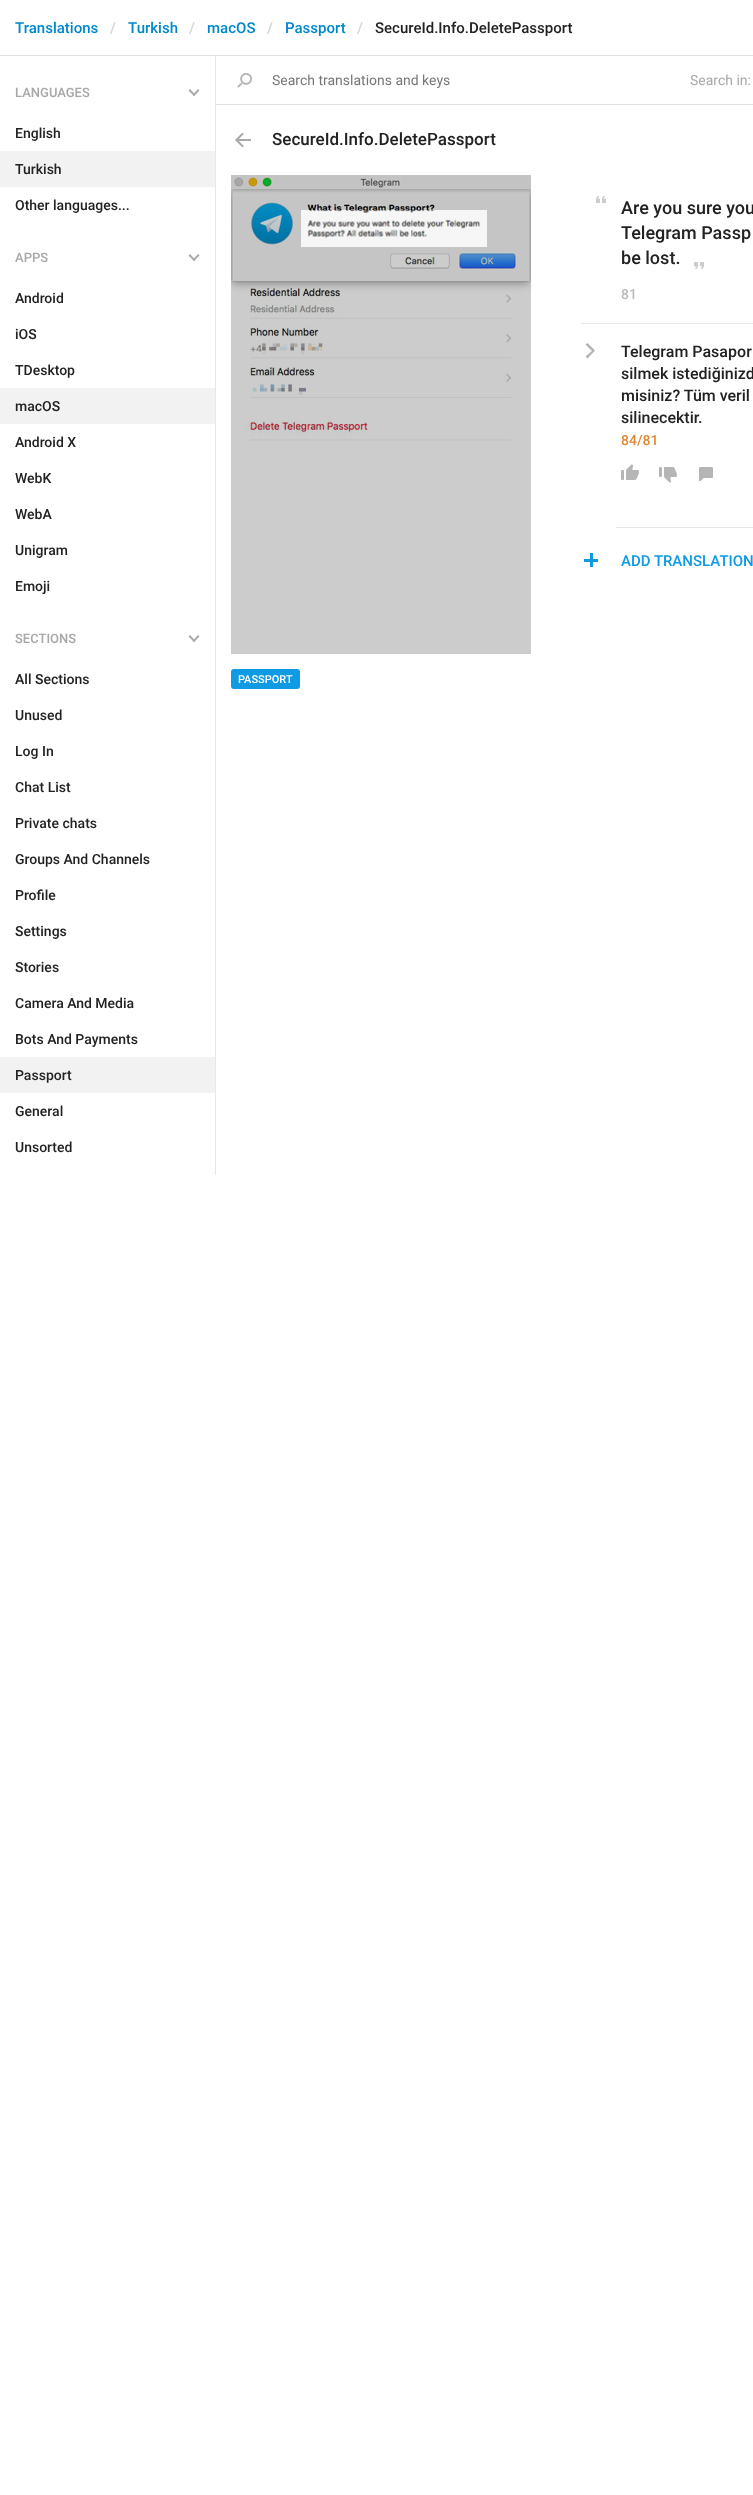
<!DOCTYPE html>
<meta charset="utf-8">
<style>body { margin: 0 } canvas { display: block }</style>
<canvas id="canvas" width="753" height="2495"></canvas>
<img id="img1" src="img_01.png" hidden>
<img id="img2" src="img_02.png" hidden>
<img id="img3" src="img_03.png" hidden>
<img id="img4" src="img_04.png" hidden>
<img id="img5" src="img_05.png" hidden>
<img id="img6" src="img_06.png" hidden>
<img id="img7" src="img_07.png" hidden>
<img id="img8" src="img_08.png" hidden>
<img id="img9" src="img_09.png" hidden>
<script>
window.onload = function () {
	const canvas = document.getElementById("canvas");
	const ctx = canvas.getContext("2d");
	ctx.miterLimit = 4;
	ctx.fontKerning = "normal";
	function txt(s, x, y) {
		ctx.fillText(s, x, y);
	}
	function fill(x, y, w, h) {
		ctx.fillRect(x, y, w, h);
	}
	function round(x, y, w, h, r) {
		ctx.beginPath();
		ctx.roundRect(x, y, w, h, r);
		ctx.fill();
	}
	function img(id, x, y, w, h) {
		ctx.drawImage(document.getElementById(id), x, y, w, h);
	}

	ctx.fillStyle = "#FFFFFF";
	fill(0, 0, 753, 2495);
	ctx.fillStyle = "#E0E0E0";
	fill(0, 55, 753, 1);
	fill(216, 104, 537, 1);
	img("img1", 237, 73, 15, 15);
	ctx.fillStyle = "#A8A8A8";
	ctx.beginPath();
	ctx.moveTo(194, 96);
	ctx.lineTo(188.5, 90.5);
	ctx.lineTo(190, 89);
	ctx.lineTo(195.5, 95);
	ctx.closePath();
	ctx.fill();
	ctx.beginPath();
	ctx.moveTo(194, 96);
	ctx.lineTo(192.5, 95);
	ctx.lineTo(198, 89);
	ctx.lineTo(199.5, 90.5);
	ctx.closePath();
	ctx.fill();
	ctx.fillStyle = "#F2F2F2";
	fill(0, 151, 215, 36);
	ctx.fillStyle = "#A8A8A8";
	ctx.beginPath();
	ctx.moveTo(194, 261);
	ctx.lineTo(188.5, 255.5);
	ctx.lineTo(190, 254);
	ctx.lineTo(195.5, 260);
	ctx.closePath();
	ctx.fill();
	ctx.beginPath();
	ctx.moveTo(194, 261);
	ctx.lineTo(192.5, 260);
	ctx.lineTo(198, 254);
	ctx.lineTo(199.5, 255.5);
	ctx.closePath();
	ctx.fill();
	ctx.fillStyle = "#F2F2F2";
	fill(0, 388, 215, 36);
	ctx.fillStyle = "#A8A8A8";
	ctx.beginPath();
	ctx.moveTo(194, 642);
	ctx.lineTo(188.5, 636.5);
	ctx.lineTo(190, 635);
	ctx.lineTo(195.5, 641);
	ctx.closePath();
	ctx.fill();
	ctx.beginPath();
	ctx.moveTo(194, 642);
	ctx.lineTo(192.5, 641);
	ctx.lineTo(198, 635);
	ctx.lineTo(199.5, 636.5);
	ctx.closePath();
	ctx.fill();
	ctx.fillStyle = "#F2F2F2";
	fill(0, 1057, 215, 36);
	ctx.fillStyle = "#E7E7E7";
	fill(215, 56, 1, 1119);
	img("img2", 235, 133, 16, 14);
	img("img3", 596, 196, 10, 7);
	img("img4", 694, 262, 10, 7);
	fill(581, 323, 172, 1);
	ctx.beginPath();
	ctx.moveTo(616, 527);
	ctx.lineTo(616, 528);
	ctx.lineTo(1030, 528);
	ctx.lineTo(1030, 325);
	ctx.lineTo(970, 325);
	ctx.lineTo(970, 527);
	ctx.closePath();
	ctx.fill();
	ctx.fillStyle = "#B3B3B3";
	ctx.beginPath();
	ctx.moveTo(592, 351);
	ctx.lineTo(585.5, 356.5);
	ctx.lineTo(587.5, 358.5);
	ctx.lineTo(595, 350.5);
	ctx.lineTo(587.5, 343);
	ctx.lineTo(585.5, 344.5);
	ctx.closePath();
	ctx.fill();
	img("img5", 621, 464, 18, 16);
	img("img6", 659, 467, 18, 16);
	img("img7", 699, 467, 14, 14);
	ctx.fillStyle = "#0F9AE4";
	fill(584, 559, 14, 3);
	fill(590, 553, 3, 14);
	img("img8", 231, 175, 300, 479);
	img("img9", 301, 210, 186, 37);
	round(231, 669, 69, 20, 3);
	ctx.font = "500 15px Roboto";
	ctx.fillStyle = "#0088CC";
	txt("Translations", 15, 33);
	ctx.fillStyle = "#D4D4D4";
	txt("/", 110, 33);
	ctx.fillStyle = "#0088CC";
	txt("Turkish", 128, 33);
	ctx.fillStyle = "#D4D4D4";
	txt("/", 189, 33);
	ctx.fillStyle = "#0088CC";
	txt("macOS", 207, 33);
	ctx.fillStyle = "#D4D4D4";
	txt("/", 267, 33);
	ctx.fillStyle = "#0088CC";
	txt("Passport", 285, 33);
	ctx.fillStyle = "#D4D4D4";
	txt("/", 357, 33);
	ctx.fillStyle = "#222222";
	txt("SecureId.Info.DeletePassport", 375, 33);
	ctx.font = "14px Roboto";
	ctx.fillStyle = "#777777";
	txt("Search translations and keys", 272, 85);
	ctx.fillStyle = "#A8A8A8";
	txt("Search in:", 690, 85);
	ctx.font = "500 13px Roboto";
	txt("LANGUAGES", 15, 97);
	ctx.font = "500 14px Roboto";
	ctx.fillStyle = "#222222";
	txt("English", 15, 138);
	txt("Turkish", 15, 174);
	txt("Other languages...", 15, 210);
	ctx.font = "500 13px Roboto";
	ctx.fillStyle = "#A8A8A8";
	txt("APPS", 15, 262);
	ctx.font = "500 14px Roboto";
	ctx.fillStyle = "#222222";
	txt("Android", 15, 303);
	txt("iOS", 15, 339);
	txt("TDesktop", 15, 375);
	txt("macOS", 15, 411);
	txt("Android X", 15, 447);
	txt("WebK", 15, 483);
	txt("WebA", 15, 519);
	txt("Unigram", 15, 555);
	txt("Emoji", 15, 591);
	ctx.font = "500 13px Roboto";
	ctx.fillStyle = "#A8A8A8";
	txt("SECTIONS", 15, 643);
	ctx.font = "500 14px Roboto";
	ctx.fillStyle = "#222222";
	txt("All Sections", 15, 684);
	txt("Unused", 15, 720);
	txt("Log In", 15, 756);
	txt("Chat List", 15, 792);
	txt("Private chats", 15, 828);
	txt("Groups And Channels", 15, 864);
	txt("Profile", 15, 900);
	txt("Settings", 15, 936);
	txt("Stories", 15, 972);
	txt("Camera And Media", 15, 1008);
	txt("Bots And Payments", 15, 1044);
	txt("Passport", 15, 1080);
	txt("General", 15, 1116);
	txt("Unsorted", 15, 1152);
	ctx.font = "500 17px Roboto";
	txt("SecureId.Info.DeletePassport", 272, 145);
	ctx.font = "500 18px Roboto";
	txt("Are you sure you", 621, 214);
	txt("Telegram Passp", 621, 239);
	txt("be lost.", 621, 264);
	ctx.font = "500 14px Roboto";
	ctx.fillStyle = "#BBBBBB";
	txt("81", 621, 299);
	ctx.font = "500 16px Roboto";
	ctx.fillStyle = "#222222";
	txt("Telegram Pasapor", 621, 357);
	txt("silmek istediğinizd", 621, 379);
	txt("misiniz? Tüm veril", 621, 401);
	txt("silinecektir.", 621, 423);
	ctx.font = "500 14px Roboto";
	ctx.fillStyle = "#DE8833";
	txt("84/81", 621, 445);
	ctx.font = "500 15px Roboto";
	ctx.fillStyle = "#0F9AE4";
	txt("ADD TRANSLATION", 621, 566);
	ctx.font = "500 11px Roboto";
	ctx.fillStyle = "#FFFFFF";
	txt("PASSPORT", 238, 683);
};
</script>
